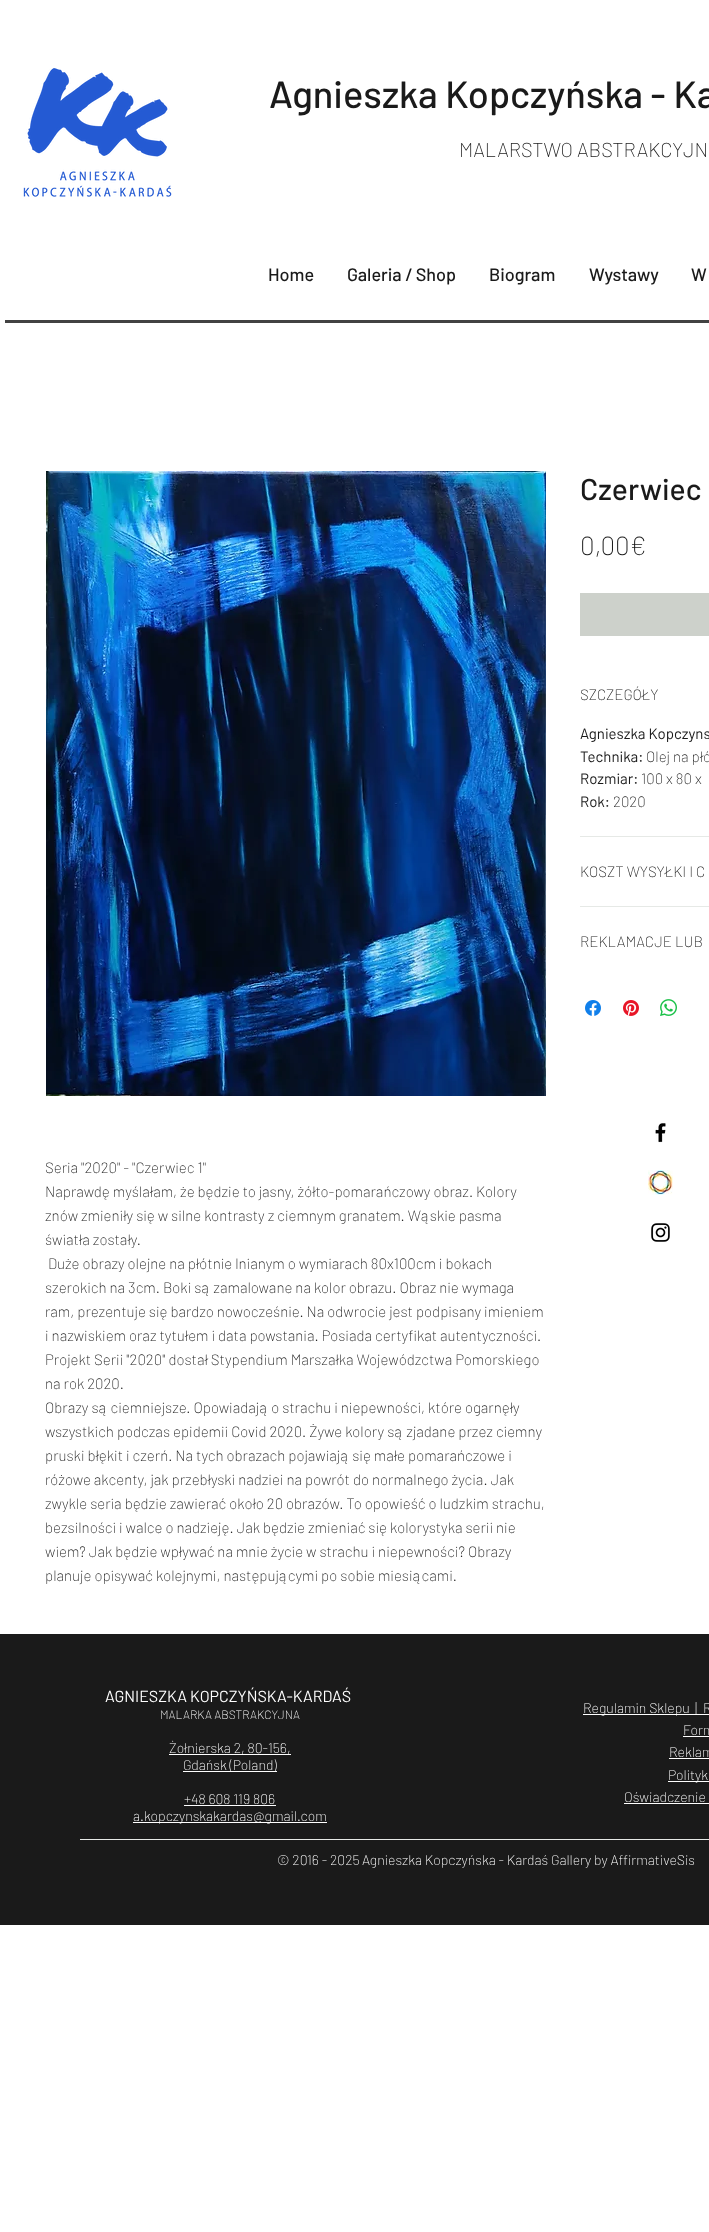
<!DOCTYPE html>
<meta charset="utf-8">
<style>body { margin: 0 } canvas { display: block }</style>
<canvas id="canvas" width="709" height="2232"></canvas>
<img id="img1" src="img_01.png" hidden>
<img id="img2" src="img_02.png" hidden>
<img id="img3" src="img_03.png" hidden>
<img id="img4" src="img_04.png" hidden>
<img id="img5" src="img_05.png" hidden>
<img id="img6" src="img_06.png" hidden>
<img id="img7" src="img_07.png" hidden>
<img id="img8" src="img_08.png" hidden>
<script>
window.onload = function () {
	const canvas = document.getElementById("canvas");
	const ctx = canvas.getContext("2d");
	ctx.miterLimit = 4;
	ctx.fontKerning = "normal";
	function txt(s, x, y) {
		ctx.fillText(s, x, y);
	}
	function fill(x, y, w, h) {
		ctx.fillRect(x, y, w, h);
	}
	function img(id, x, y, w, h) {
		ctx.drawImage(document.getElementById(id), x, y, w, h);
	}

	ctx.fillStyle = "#FFFFFF";
	fill(0, 0, 709, 2232);
	img("img1", 23, 68, 149, 129);
	ctx.fillStyle = "#424242";
	fill(5, 320, 704, 3);
	ctx.fillStyle = "#CDD1CB";
	fill(580, 593, 129, 43);
	ctx.fillStyle = "#E6E9E6";
	fill(580, 836, 129, 1);
	fill(580, 906, 129, 1);
	img("img2", 585, 1000, 16, 16);
	img("img3", 623, 1000, 16, 16);
	img("img4", 660, 999, 17, 17);
	img("img5", 46, 471, 500, 625);
	img("img6", 655, 1123, 11, 20);
	img("img7", 648, 1170, 25, 25);
	img("img8", 651, 1223, 19, 19);
	ctx.fillStyle = "#1A1A1A";
	fill(0, 1634, 709, 291);
	ctx.fillStyle = "#FFFFFF";
	fill(169, 1754, 122, 1);
	fill(183, 1771, 94, 1);
	fill(184, 1805, 92, 1);
	fill(133, 1822, 194, 1);
	fill(583, 1714, 126, 1);
	fill(683, 1736, 26, 1);
	fill(669, 1758, 40, 1);
	fill(668, 1781, 41, 1);
	fill(624, 1803, 85, 1);
	ctx.fillStyle = "#E6E9E6";
	fill(80, 1839, 629, 1);
	ctx.font = "500 38px Barlow";
	ctx.fillStyle = "#1A1A1A";
	txt("Agnieszka Kopczyńska - Ka", 269, 108);
	ctx.font = "200 20px Barlow";
	txt("MALARSTWO ABSTRAKCYJN", 459, 157);
	ctx.font = "500 18px Barlow";
	txt("Home", 268, 281);
	txt("Galeria / Shop", 347, 281);
	txt("Biogram", 489, 281);
	txt("Wystawy", 589, 281);
	txt("W", 691, 281);
	ctx.font = "500 30px Barlow";
	txt("Czerwiec", 580, 500);
	ctx.font = "200 26px Barlow";
	txt("0,00€", 580, 555);
	ctx.font = "200 15px Barlow";
	txt("SZCZEGÓŁY", 580, 700);
	ctx.font = "15px Barlow";
	txt("Agnieszka Kopczyns", 580, 739);
	txt("Technika:", 580, 762);
	ctx.font = "200 15px Barlow";
	txt("Olej na płó", 646, 762);
	ctx.font = "15px Barlow";
	txt("Rozmiar:", 580, 784);
	ctx.font = "200 15px Barlow";
	txt("100 x 80 x", 641, 784);
	ctx.font = "15px Barlow";
	txt("Rok:", 580, 807);
	ctx.font = "200 15px Barlow";
	txt("2020", 613, 807);
	txt("KOSZT WYSYŁKI I C", 580, 877);
	txt("REKLAMACJE LUB", 580, 947);
	txt("Seria \"2020\" - \"Czerwiec 1\"", 45, 1173);
	txt("Naprawdę myślałam, że będzie to jasny, żółto-pomarańczowy obraz. Kolory", 45, 1197);
	txt("znów zmieniły się w silne kontrasty z ciemnym granatem. Wąskie pasma", 45, 1221);
	txt("światła zostały.", 45, 1245);
	txt("Duże obrazy olejne na płótnie lnianym o wymiarach 80x100cm i bokach", 48, 1269);
	txt("szerokich na 3cm. Boki są zamalowane na kolor obrazu. Obraz nie wymaga", 45, 1293);
	txt("ram, prezentuje się bardzo nowocześnie. Na odwrocie jest podpisany imieniem", 45, 1317);
	txt("i nazwiskiem oraz tytułem i data powstania. Posiada certyfikat autentyczności.", 45, 1341);
	txt("Projekt Serii \"2020\" dostał Stypendium Marszałka Wojewódzctwa Pomorskiego", 45, 1365);
	txt("na rok 2020.", 45, 1389);
	txt("Obrazy są ciemniejsze. Opowiadają o strachu i niepewności, które ogarnęły", 45, 1413);
	txt("wszystkich podczas epidemii Covid 2020. Żywe kolory są zjadane przez ciemny", 45, 1437);
	txt("pruski błękit i czerń. Na tych obrazach pojawiają się małe pomarańczowe i", 45, 1461);
	txt("różowe akcenty, jak przebłyski nadziei na powrót do normalnego życia. Jak", 45, 1485);
	txt("zwykle seria będzie zawierać około 20 obrazów. To opowieść o ludzkim strachu,", 45, 1509);
	txt("bezsilności i walce o nadzieję. Jak będzie zmieniać się kolorystyka serii nie", 45, 1533);
	txt("wiem? Jak będzie wpływać na mnie życie w strachu i niepewności? Obrazy", 45, 1557);
	txt("planuje opisywać kolejnymi, następującymi po sobie miesiącami.", 45, 1581);
	ctx.font = "16px Barlow";
	ctx.fillStyle = "#FFFFFF";
	txt("AGNIESZKA KOPCZYŃSKA-KARDAŚ", 105, 1702);
	ctx.font = "200 12px Barlow";
	txt("MALARKA ABSTRAKCYJNA", 160, 1719);
	ctx.font = "200 14px Barlow";
	txt("Żołnierska 2, 80-156,", 169, 1753);
	txt("Gdańsk (Poland)", 183, 1770);
	txt("+48 608 119 806", 184, 1804);
	txt("a.kopczynskakardas@gmail.com", 133, 1821);
	txt("Regulamin Sklepu", 583, 1713);
	txt("|", 695, 1713);
	txt("R", 703, 1713);
	txt("Form", 683, 1735);
	txt("Reklam", 669, 1757);
	txt("Polityk", 668, 1780);
	txt("Oświadczenie", 624, 1802);
	txt("© 2016 - 2025", 277, 1865);
	txt("Agnieszka Kopczyńska - Kardaś Galler", 362, 1865);
	txt("y by AffirmativeSis", 585, 1865);
};
</script>
